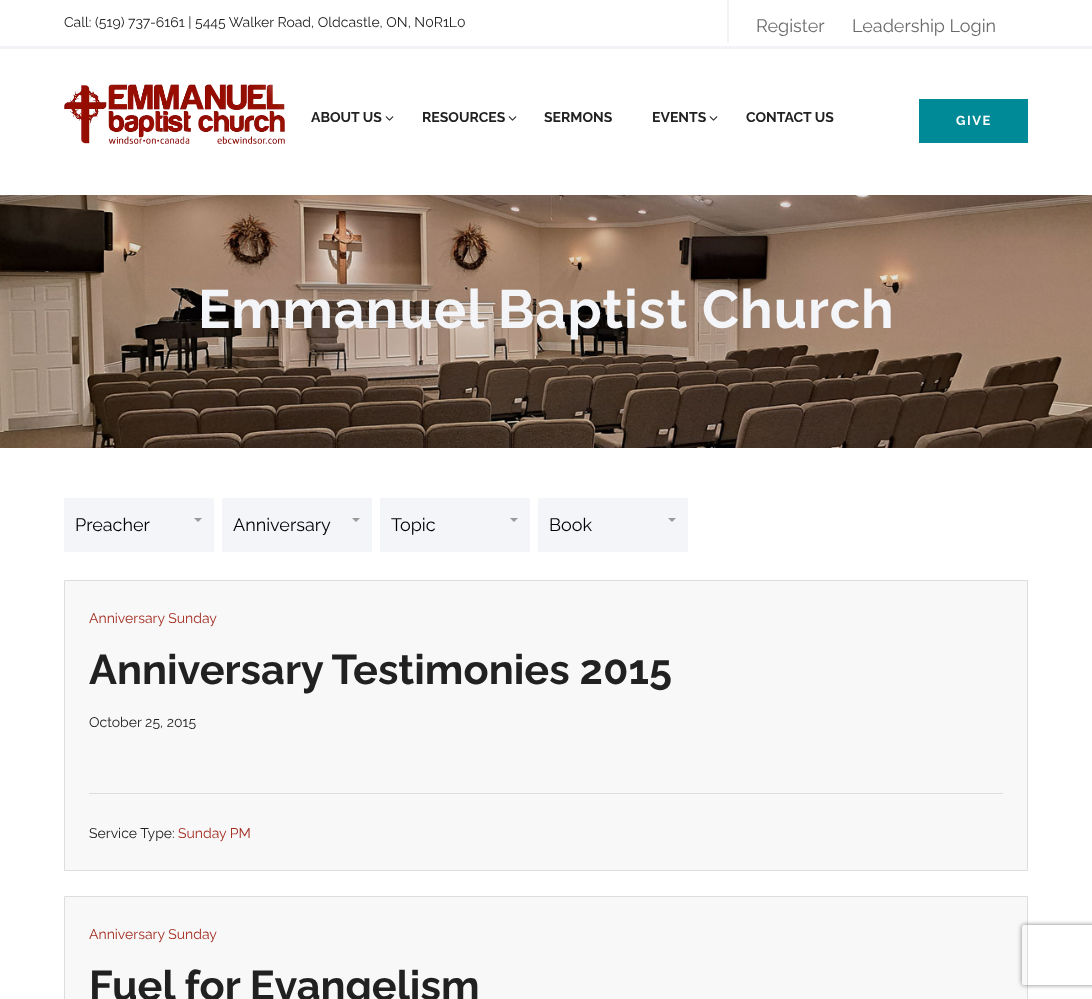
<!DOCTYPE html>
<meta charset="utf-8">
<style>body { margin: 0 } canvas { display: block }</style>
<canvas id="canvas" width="1092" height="999"></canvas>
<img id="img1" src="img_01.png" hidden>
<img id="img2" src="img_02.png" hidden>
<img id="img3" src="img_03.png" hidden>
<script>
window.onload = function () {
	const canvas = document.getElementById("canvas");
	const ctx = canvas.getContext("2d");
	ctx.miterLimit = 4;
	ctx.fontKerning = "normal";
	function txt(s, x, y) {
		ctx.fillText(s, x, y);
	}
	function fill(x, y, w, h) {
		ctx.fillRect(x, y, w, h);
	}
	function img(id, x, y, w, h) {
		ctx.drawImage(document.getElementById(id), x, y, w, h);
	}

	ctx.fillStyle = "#FFFFFF";
	fill(0, 0, 1092, 999);
	ctx.fillStyle = "#F2F3F7";
	fill(0, 46, 1092, 3);
	fill(727, 0, 2, 43);
	img("img1", 64, 84, 221, 60);
	img("img2", 385, 116, 9, 5);
	img("img2", 508, 116, 9, 5);
	img("img2", 709, 116, 9, 5);
	ctx.fillStyle = "#008996";
	fill(919, 99, 109, 44);
	img("img3", 0, 195, 1092, 253);
	ctx.fillStyle = "#F3F5F8";
	fill(64, 498, 150, 54);
	ctx.fillStyle = "#999999";
	ctx.beginPath();
	ctx.moveTo(194, 518);
	ctx.lineTo(202, 518);
	ctx.lineTo(198, 522);
	ctx.closePath();
	ctx.fill();
	ctx.fillStyle = "#F3F5F8";
	fill(222, 498, 150, 54);
	ctx.fillStyle = "#999999";
	ctx.beginPath();
	ctx.moveTo(352, 518);
	ctx.lineTo(360, 518);
	ctx.lineTo(356, 522);
	ctx.closePath();
	ctx.fill();
	ctx.fillStyle = "#F3F5F8";
	fill(380, 498, 150, 54);
	ctx.fillStyle = "#999999";
	ctx.beginPath();
	ctx.moveTo(510, 518);
	ctx.lineTo(518, 518);
	ctx.lineTo(514, 522);
	ctx.closePath();
	ctx.fill();
	ctx.fillStyle = "#F3F5F8";
	fill(538, 498, 150, 54);
	ctx.fillStyle = "#999999";
	ctx.beginPath();
	ctx.moveTo(668, 518);
	ctx.lineTo(676, 518);
	ctx.lineTo(672, 522);
	ctx.closePath();
	ctx.fill();
	ctx.fillStyle = "#F8F8F8";
	ctx.beginPath();
	ctx.rect(64.5, 580.5, 963, 290);
	ctx.fill();
	ctx.strokeStyle = "#DDDDDD";
	ctx.stroke();
	ctx.fillStyle = "#DDDDDD";
	fill(89, 793, 914, 1);
	ctx.fillStyle = "#F8F8F8";
	ctx.beginPath();
	ctx.rect(64.5, 896.5, 963, 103);
	ctx.fill();
	ctx.stroke();
	ctx.save();
	ctx.beginPath();
	ctx.moveTo(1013, 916);
	ctx.lineTo(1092, 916);
	ctx.lineTo(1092, 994);
	ctx.lineTo(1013, 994);
	ctx.closePath();
	ctx.moveTo(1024, 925);
	ctx.lineTo(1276, 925);
	ctx.bezierCurveTo(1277, 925, 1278, 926, 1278, 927);
	ctx.lineTo(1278, 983);
	ctx.bezierCurveTo(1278, 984, 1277, 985, 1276, 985);
	ctx.lineTo(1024, 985);
	ctx.bezierCurveTo(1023, 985, 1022, 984, 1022, 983);
	ctx.lineTo(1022, 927);
	ctx.bezierCurveTo(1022, 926, 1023, 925, 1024, 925);
	ctx.closePath();
	ctx.clip("evenodd");
	ctx.fillStyle = "#808080";
	ctx.filter = "blur(2.5px)";
	ctx.beginPath();
	ctx.roundRect(1022, 925, 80, 60, 2);
	ctx.fill();
	ctx.filter = "none";
	ctx.restore();
	ctx.font = "14px Raleway";
	ctx.fillStyle = "#212121";
	txt("Call: (519) 737-6161 | 5445 Walker Road, Oldcastle, ON, N0R1L0", 64, 27);
	ctx.font = "18px Raleway";
	ctx.fillStyle = "#6A6A6A";
	txt("Register", 756, 32);
	txt("Leadership Login", 852, 32);
	ctx.font = "bold 14px Raleway";
	ctx.fillStyle = "#212121";
	txt("ABOUT US", 311, 122);
	txt("RESOURCES", 422, 122);
	txt("SERMONS", 544, 122);
	txt("EVENTS", 652, 122);
	txt("CONTACT US", 746, 122);
	ctx.letterSpacing = "1.5px";
	ctx.font = "bold 13px Raleway";
	ctx.fillStyle = "#FFFFFF";
	txt("GIVE", 956, 125);
	ctx.letterSpacing = "1px";
	ctx.font = "bold 54px Raleway";
	ctx.fillStyle = "#F3F5F8";
	txt("Emmanuel Baptist Church", 198, 328);
	ctx.letterSpacing = "0px";
	ctx.font = "18px Raleway";
	ctx.fillStyle = "#000000";
	txt("Preacher", 75, 531);
	txt("Anniversary", 233, 531);
	txt("Topic", 391, 531);
	txt("Book", 549, 531);
	ctx.font = "14px Raleway";
	ctx.fillStyle = "#A32C20";
	txt("Anniversary Sunday", 89, 623);
	ctx.font = "bold 41.5px Raleway";
	ctx.fillStyle = "#212121";
	txt("Anniversary Testimonies 2015", 89, 684);
	ctx.font = "14px Raleway";
	txt("October 25, 2015", 89, 727);
	txt("Service Type:", 89, 838);
	ctx.fillStyle = "#A32C20";
	txt("Sunday PM", 178, 838);
	txt("Anniversary Sunday", 89, 939);
	ctx.font = "bold 41.5px Raleway";
	ctx.fillStyle = "#212121";
	txt("Fuel for Evangelism", 89, 1000);
};
</script>
